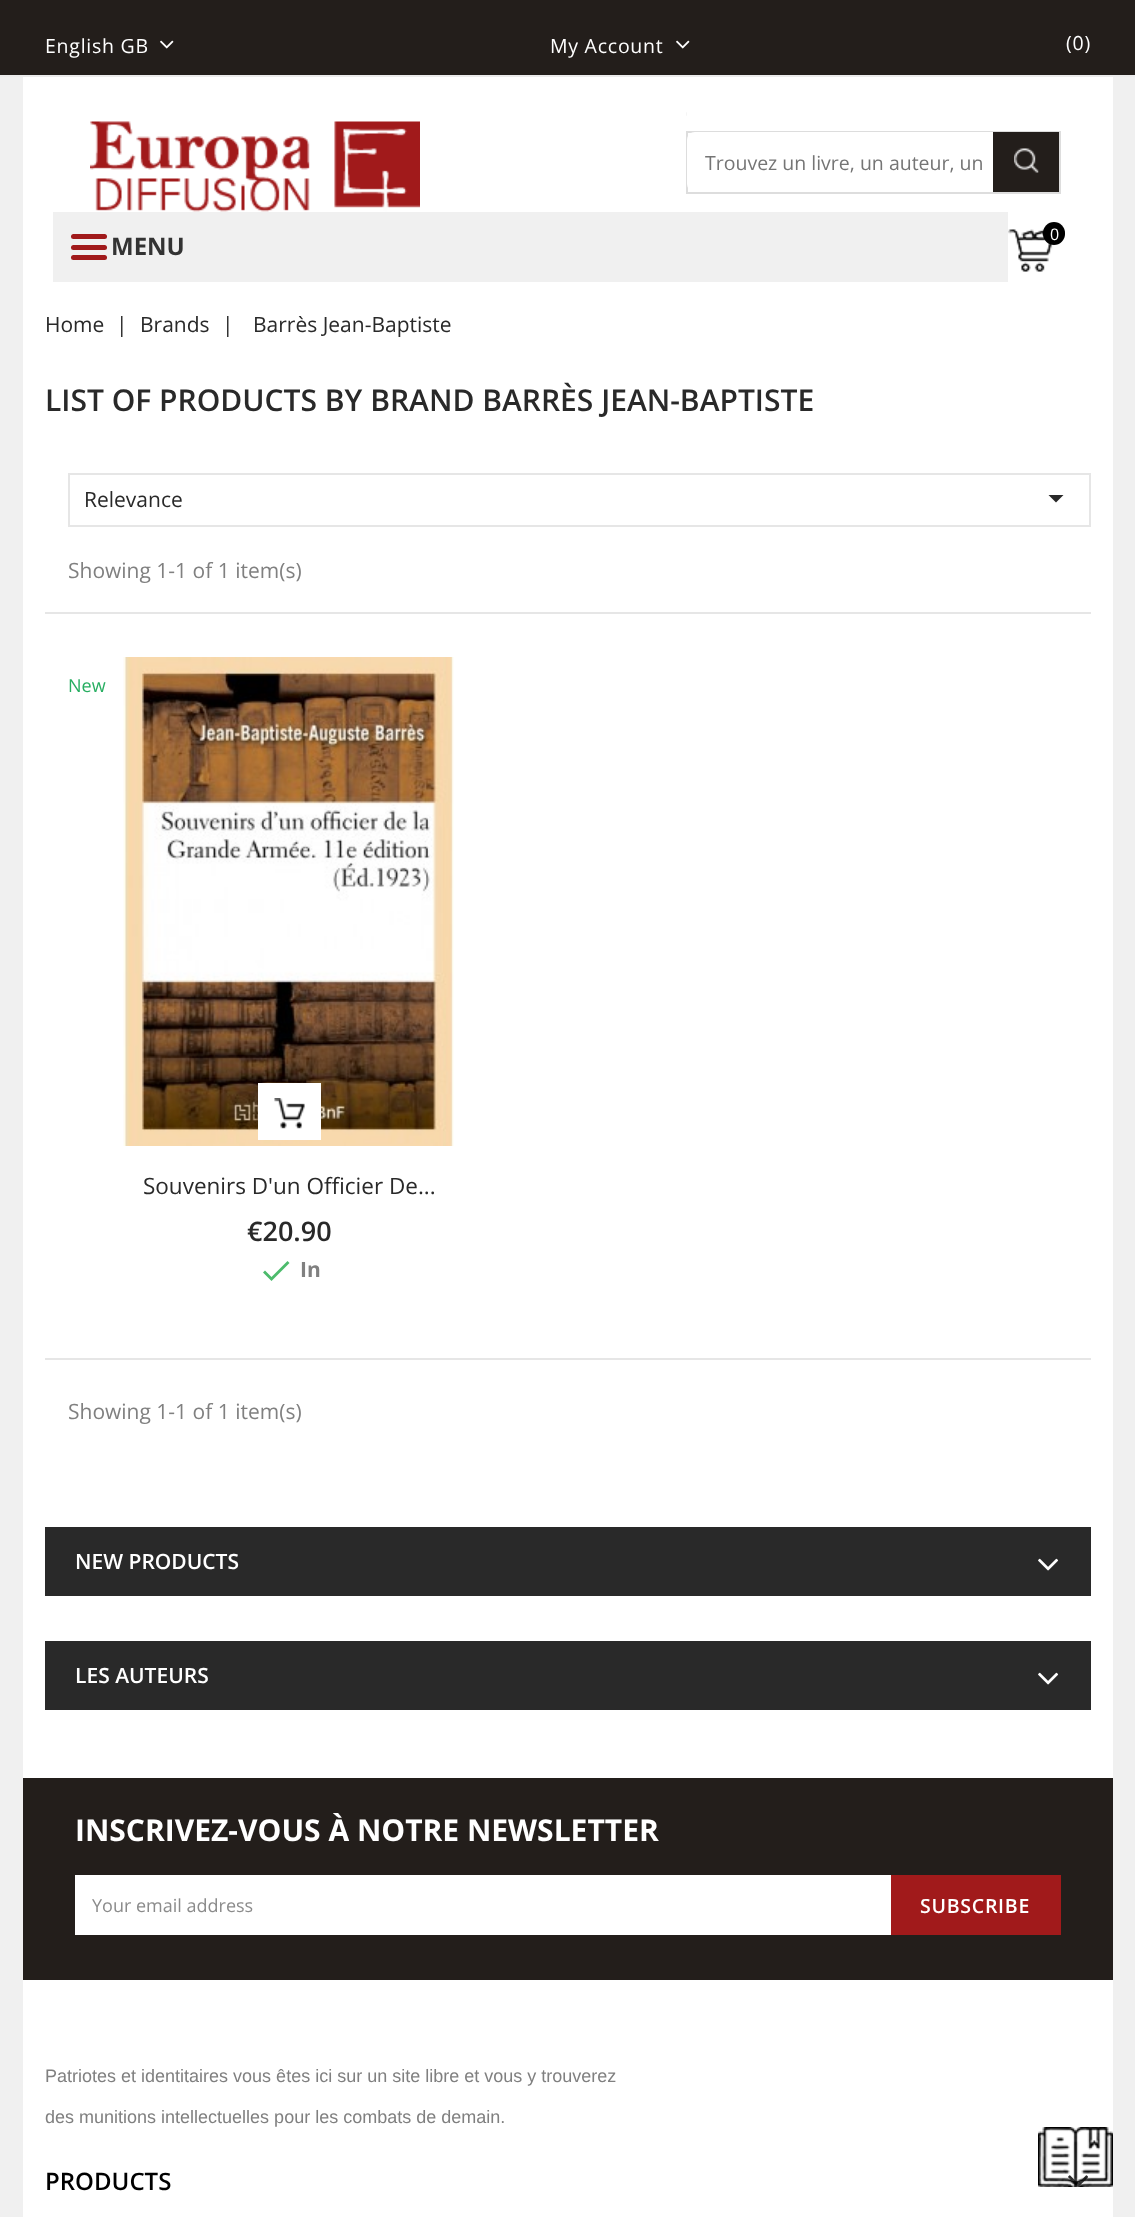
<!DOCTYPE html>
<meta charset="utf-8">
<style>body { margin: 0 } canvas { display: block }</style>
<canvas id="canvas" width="1135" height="2217"></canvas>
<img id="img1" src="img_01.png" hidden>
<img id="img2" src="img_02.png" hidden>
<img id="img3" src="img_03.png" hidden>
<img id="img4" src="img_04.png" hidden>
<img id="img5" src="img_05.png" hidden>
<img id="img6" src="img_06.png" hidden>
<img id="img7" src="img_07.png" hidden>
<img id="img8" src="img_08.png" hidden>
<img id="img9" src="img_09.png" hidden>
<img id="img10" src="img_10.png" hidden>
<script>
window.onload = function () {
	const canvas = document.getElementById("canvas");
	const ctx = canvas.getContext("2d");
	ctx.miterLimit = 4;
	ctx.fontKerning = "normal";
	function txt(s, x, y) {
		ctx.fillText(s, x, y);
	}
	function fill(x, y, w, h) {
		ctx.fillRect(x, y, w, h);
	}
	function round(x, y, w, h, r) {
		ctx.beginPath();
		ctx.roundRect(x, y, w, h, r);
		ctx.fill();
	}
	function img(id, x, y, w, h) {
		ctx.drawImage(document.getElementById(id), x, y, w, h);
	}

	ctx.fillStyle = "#F0F0F0";
	fill(0, 0, 1135, 2217);
	ctx.fillStyle = "#FFFFFF";
	fill(23, 77, 1090, 1701);
	ctx.fillStyle = "#231E1B";
	fill(0, 0, 1135, 75);
	ctx.fillStyle = "#EBEBEB";
	fill(0, 75, 1135, 2);
	img("img1", 160, 40, 14, 9);
	img("img1", 676, 40, 14, 9);
	img("img2", 90, 121, 330, 91);
	img("img3", 686, 112, 1, 4);
	ctx.strokeStyle = "#DDDDDD";
	ctx.lineWidth = 2;
	ctx.strokeRect(687, 132, 373, 61);
	ctx.fillStyle = "#FFFFFF";
	round(687, 132, 372, 60, 8);
	ctx.fillStyle = "#231E1B";
	fill(993, 132, 66, 60);
	img("img4", 1014, 148, 25, 25);
	img("img5", 1008, 229, 47, 43);
	ctx.fillStyle = "#000000";
	round(1043, 222, 22, 23, 11);
	ctx.fillStyle = "#F0F0F0";
	fill(53, 212, 955, 70);
	ctx.fillStyle = "#A11A1B";
	round(71, 234, 36, 5, 2.5);
	round(71, 245, 36, 5, 2.5);
	round(71, 255, 36, 5, 2.5);
	ctx.fillStyle = "#E6E6E6";
	fill(45, 612, 1046, 2);
	ctx.strokeStyle = "#E6E6E6";
	ctx.strokeRect(69, 474, 1021, 52);
	ctx.fillStyle = "#292929";
	ctx.beginPath();
	ctx.moveTo(1048.5, 495);
	ctx.lineTo(1063.5, 495);
	ctx.lineTo(1056, 502.5);
	ctx.closePath();
	ctx.fill();
	img("img6", 123, 657, 331, 489);
	ctx.fillStyle = "#FFFFFF";
	fill(258, 1083, 63, 57);
	img("img7", 274, 1098, 31, 31);
	ctx.fillStyle = "#4CBB6C";
	ctx.beginPath();
	ctx.moveTo(271.5, 1277);
	ctx.lineTo(287.5, 1261);
	ctx.lineTo(289.5, 1263);
	ctx.lineTo(271.5, 1281);
	ctx.lineTo(263, 1272.5);
	ctx.lineTo(265, 1270.5);
	ctx.closePath();
	ctx.fill();
	ctx.fillStyle = "#E6E6E6";
	fill(45, 1358, 1046, 2);
	ctx.fillStyle = "#292929";
	fill(45, 1527, 1046, 69);
	img("img8", 1038, 1558, 21, 13);
	fill(45, 1641, 1046, 69);
	img("img8", 1038, 1672, 21, 13);
	ctx.fillStyle = "#231E1B";
	fill(23, 1778, 1090, 202);
	ctx.fillStyle = "#FFFFFF";
	fill(75, 1875, 816, 60);
	ctx.fillStyle = "#A11A1B";
	fill(891, 1875, 170, 60);
	ctx.fillStyle = "#FFFFFF";
	fill(23, 1980, 1090, 237);
	img("img9", 1068, 2175, 20, 12);
	img("img10", 1038, 2127, 75, 60);
	ctx.letterSpacing = "0.75px";
	ctx.font = "19.5px Open Sans";
	txt("English GB", 45, 53);
	txt("My Account", 550, 53);
	txt("(0)", 1066, 50);
	ctx.letterSpacing = "0px";
	ctx.fillStyle = "#757575";
	txt("Trouvez un livre, un auteur, un", 705, 170);
	ctx.font = "16px Open Sans";
	ctx.fillStyle = "#FFFFFF";
	txt("0", 1050, 240);
	ctx.font = "bold 24px Open Sans";
	ctx.fillStyle = "#333333";
	txt("MENU", 111, 255);
	ctx.font = "21px Open Sans";
	ctx.fillStyle = "#292929";
	txt("Home", 45, 332);
	txt("|", 116, 332);
	txt("Brands", 140, 332);
	txt("|", 222, 332);
	txt("Barrès Jean-Baptiste", 253, 332);
	ctx.font = "600 30px Open Sans";
	txt("LIST OF PRODUCTS BY BRAND BARRÈS JEAN-BAPTISTE", 45, 411);
	ctx.font = "21px Open Sans";
	txt("Relevance", 84, 507);
	ctx.fillStyle = "#808080";
	txt("Showing 1-1 of 1 item(s)", 68, 578);
	ctx.font = "18px Open Sans";
	ctx.fillStyle = "#27AE61";
	txt("New", 68, 692);
	ctx.font = "22.5px Open Sans";
	ctx.fillStyle = "#292929";
	txt("Souvenirs D'un Officier De...", 143, 1194);
	ctx.font = "600 27px Open Sans";
	txt("€20.90", 247, 1241);
	ctx.font = "bold 21px Open Sans";
	ctx.fillStyle = "#808080";
	txt("In", 300, 1277);
	ctx.font = "21px Open Sans";
	txt("Showing 1-1 of 1 item(s)", 68, 1419);
	ctx.font = "600 21px Open Sans";
	ctx.fillStyle = "#FFFFFF";
	txt("NEW PRODUCTS", 75, 1569);
	txt("LES AUTEURS", 75, 1683);
	ctx.font = "bold 30px Open Sans";
	txt("INSCRIVEZ-VOUS À NOTRE NEWSLETTER", 75, 1841);
	ctx.font = "18px Open Sans";
	ctx.fillStyle = "#8B8B8B";
	txt("Your email address", 92, 1912);
	ctx.letterSpacing = "0.75px";
	ctx.font = "600 19.5px Open Sans";
	ctx.fillStyle = "#FFFFFF";
	txt("SUBSCRIBE", 920, 1913);
	ctx.letterSpacing = "0px";
	ctx.font = "18px Liberation Sans";
	ctx.fillStyle = "#808080";
	txt("Patriotes et identitaires vous êtes ici sur un site libre et vous y trouverez", 45, 2082);
	txt("des munitions intellectuelles pour les combats de demain.", 45, 2123);
	ctx.font = "600 24px Open Sans";
	ctx.fillStyle = "#000000";
	txt("PRODUCTS", 45, 2190);
};
</script>
